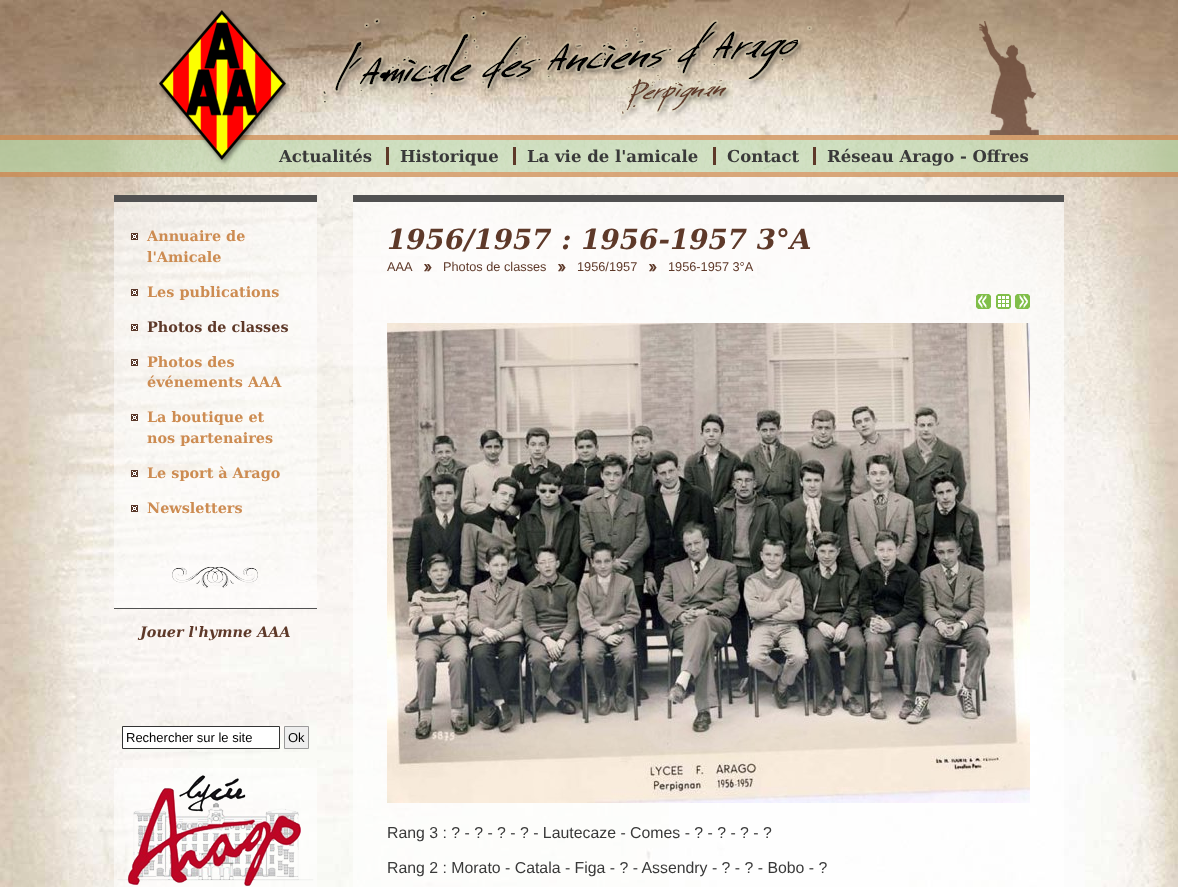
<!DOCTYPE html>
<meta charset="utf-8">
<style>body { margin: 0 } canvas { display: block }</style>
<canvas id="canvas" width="1178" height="887"></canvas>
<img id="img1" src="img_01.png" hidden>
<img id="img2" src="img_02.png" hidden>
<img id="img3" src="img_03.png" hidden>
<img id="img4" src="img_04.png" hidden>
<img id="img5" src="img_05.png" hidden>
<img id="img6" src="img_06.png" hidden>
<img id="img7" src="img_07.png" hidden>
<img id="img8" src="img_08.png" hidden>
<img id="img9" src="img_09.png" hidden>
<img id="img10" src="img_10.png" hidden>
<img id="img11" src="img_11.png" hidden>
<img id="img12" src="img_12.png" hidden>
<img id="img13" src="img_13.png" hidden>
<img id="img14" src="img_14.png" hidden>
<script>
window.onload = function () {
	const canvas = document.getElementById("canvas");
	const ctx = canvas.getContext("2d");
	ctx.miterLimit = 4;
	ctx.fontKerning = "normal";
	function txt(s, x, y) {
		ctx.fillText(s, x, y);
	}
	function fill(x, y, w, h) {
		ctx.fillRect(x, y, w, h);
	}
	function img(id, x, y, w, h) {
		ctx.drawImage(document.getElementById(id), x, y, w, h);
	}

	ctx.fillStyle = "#FFFFFF";
	fill(0, 0, 1178, 887);
	img("img1", 0, 0, 1178, 887);
	img("img2", 0, 135, 1178, 42);
	img("img3", 159, 10, 131, 155);
	img("img4", 322, 10, 717, 125);
	ctx.fillStyle = "#5E3929";
	fill(386, 147, 3, 18);
	fill(513, 147, 3, 18);
	fill(713, 147, 3, 18);
	fill(813, 147, 3, 18);
	img("img5", 114, 202, 203, 406);
	ctx.fillStyle = "#515151";
	fill(114, 195, 203, 7);
	fill(114, 608, 203, 1);
	img("img6", 131, 233, 7, 7);
	img("img6", 131, 289, 7, 7);
	img("img6", 131, 324, 7, 7);
	img("img6", 131, 359, 7, 7);
	img("img6", 131, 414, 7, 7);
	img("img6", 131, 470, 7, 7);
	img("img6", 131, 505, 7, 7);
	ctx.fillStyle = "#FFFFFF";
	ctx.beginPath();
	ctx.rect(122.5, 726.5, 157, 22);
	ctx.fill();
	ctx.strokeStyle = "#333333";
	ctx.stroke();
	ctx.fillStyle = "#EEEEEE";
	ctx.beginPath();
	ctx.rect(284.5, 726.5, 24, 22);
	ctx.fill();
	ctx.strokeStyle = "#999999";
	ctx.stroke();
	img("img7", 114, 768, 203, 119);
	ctx.fillStyle = "rgba(255, 255, 255, 0.6)";
	fill(353, 202, 711, 685);
	ctx.fillStyle = "#515151";
	fill(353, 195, 711, 7);
	img("img8", 424, 264, 8, 8);
	img("img9", 558, 264, 8, 8);
	img("img10", 649, 264, 8, 8);
	img("img11", 976, 294, 15, 15);
	img("img12", 996, 294, 15, 15);
	img("img13", 1015, 294, 15, 15);
	img("img14", 387, 323, 643, 480);
	ctx.font = "bold 16.5px DejaVu Serif";
	ctx.fillStyle = "#393939";
	txt("Actualités", 279, 162);
	txt("Historique", 400, 162);
	txt("La vie de l'amicale", 527, 162);
	txt("Contact", 727, 162);
	txt("Réseau Arago - Offres", 827, 162);
	ctx.font = "bold 14.4px DejaVu Serif";
	ctx.fillStyle = "#CD8C52";
	txt("Annuaire de", 147, 241);
	txt("l'Amicale", 147, 262);
	txt("Les publications", 147, 297);
	ctx.fillStyle = "#5E3929";
	txt("Photos de classes", 147, 332);
	ctx.fillStyle = "#CD8C52";
	txt("Photos des", 147, 367);
	txt("événements AAA", 147, 387);
	txt("La boutique et", 147, 422);
	txt("nos partenaires", 147, 443);
	txt("Le sport à Arago", 147, 478);
	txt("Newsletters", 147, 513);
	ctx.font = "italic bold 14.4px DejaVu Serif";
	ctx.fillStyle = "#5E3929";
	txt("Jouer l'hymne AAA", 140, 637);
	ctx.font = "13px Liberation Sans";
	ctx.fillStyle = "#000000";
	txt("Rechercher sur le site", 126, 742);
	txt("Ok", 288, 742);
	ctx.font = "italic bold 27.75px DejaVu Serif";
	ctx.fillStyle = "#5E3929";
	txt("1956/1957 : 1956-1957 3°A", 387, 249);
	ctx.font = "12.75px Liberation Sans";
	txt("AAA", 387, 271);
	txt("Photos de classes", 443, 271);
	txt("1956/1957", 577, 271);
	txt("1956-1957 3°A", 668, 271);
	ctx.font = "15.85px Liberation Sans";
	ctx.fillStyle = "#393939";
	txt("Rang 3 : ? - ? - ? - ? - Lautecaze - Comes - ? - ? - ? - ?", 387, 838);
	txt("Rang 2 : Morato - Catala - Figa - ? - Assendry - ? - ? - Bobo - ?", 387, 873);
};
</script>
